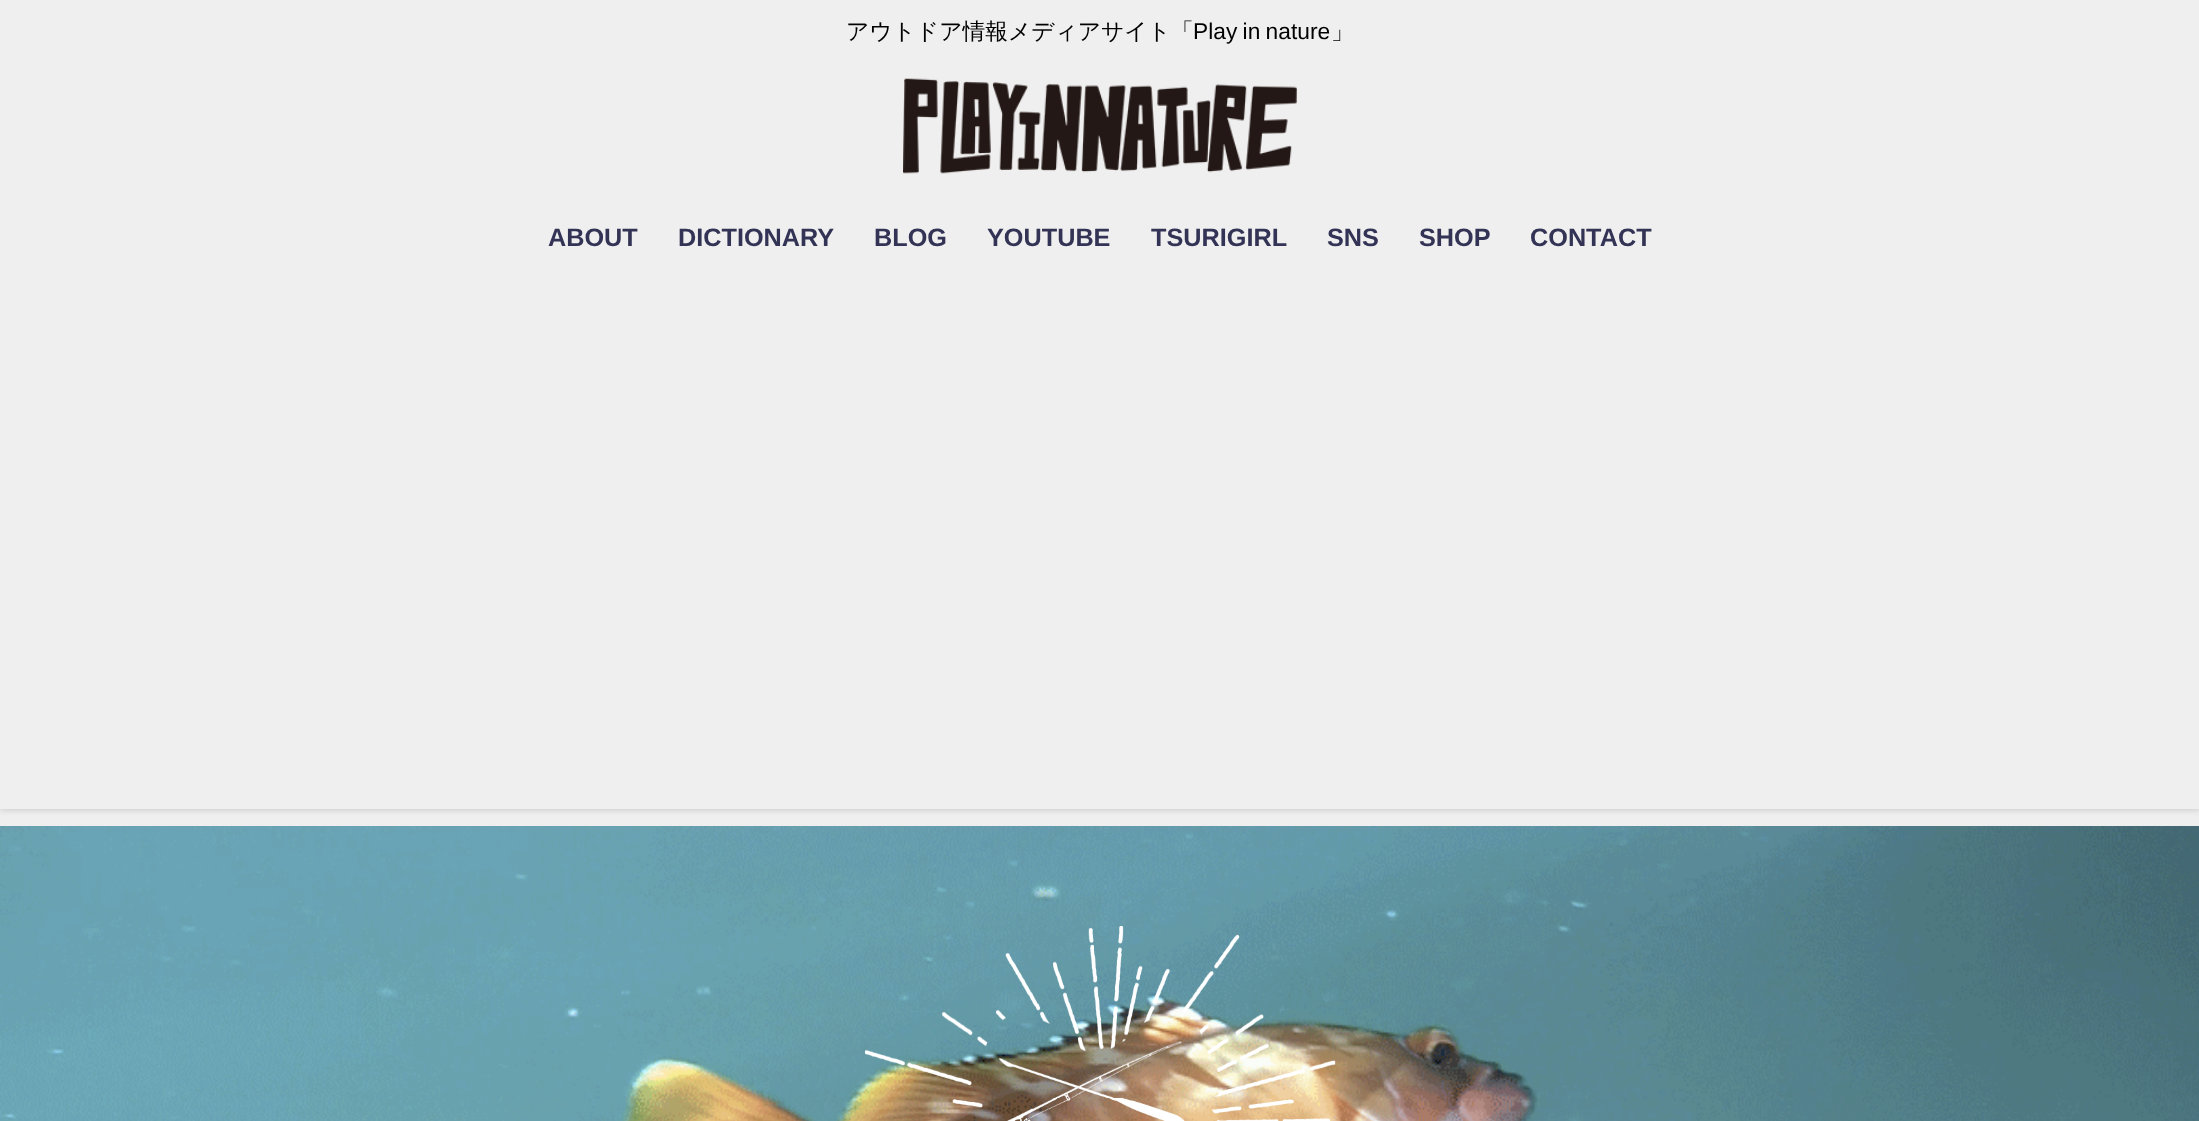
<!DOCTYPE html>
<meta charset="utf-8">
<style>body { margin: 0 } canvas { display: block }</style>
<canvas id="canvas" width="2199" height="1121"></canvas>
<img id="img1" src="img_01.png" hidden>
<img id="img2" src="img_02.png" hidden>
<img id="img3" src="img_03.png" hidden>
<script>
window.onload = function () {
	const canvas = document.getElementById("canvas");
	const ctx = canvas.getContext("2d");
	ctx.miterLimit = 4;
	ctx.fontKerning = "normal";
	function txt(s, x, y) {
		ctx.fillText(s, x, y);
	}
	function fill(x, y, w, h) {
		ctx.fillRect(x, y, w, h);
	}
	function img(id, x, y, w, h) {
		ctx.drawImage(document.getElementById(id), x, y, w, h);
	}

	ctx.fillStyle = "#EFEFEF";
	fill(0, 0, 2199, 1121);
	ctx.save();
	ctx.beginPath();
	ctx.moveTo(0, 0);
	ctx.lineTo(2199, 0);
	ctx.lineTo(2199, 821);
	ctx.lineTo(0, 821);
	ctx.closePath();
	ctx.moveTo(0, 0);
	ctx.lineTo(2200, 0);
	ctx.lineTo(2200, 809);
	ctx.lineTo(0, 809);
	ctx.closePath();
	ctx.clip("evenodd");
	ctx.fillStyle = "rgba(0, 0, 0, 0.2)";
	ctx.filter = "blur(3.5px)";
	ctx.beginPath();
	ctx.rect(0, 0, 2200, 809);
	ctx.fill();
	ctx.filter = "none";
	ctx.restore();
	img("img1", 903, 78, 394, 96);
	img("img2", 0, 826, 2199, 295);
	img("img3", 865, 926, 471, 195);
	ctx.font = "500 22.75px WenQuanYi Zen Hei";
	ctx.fillStyle = "#000000";
	txt("アウトドア情報メディアサイト「", 846, 39);
	ctx.wordSpacing = "-1px";
	ctx.font = "22.75px Liberation Sans";
	txt("Play in nature", 1193, 39);
	ctx.wordSpacing = "0px";
	ctx.font = "500 22.75px WenQuanYi Zen Hei";
	txt("」", 1331, 39);
	ctx.font = "bold 25.25px Liberation Sans";
	ctx.fillStyle = "#333355";
	txt("ABOUT", 548, 246);
	txt("DICTIONARY", 678, 246);
	txt("BLOG", 874, 246);
	txt("YOUTUBE", 987, 246);
	txt("TSURIGIRL", 1151, 246);
	txt("SNS", 1327, 246);
	txt("SHOP", 1419, 246);
	txt("CONTACT", 1530, 246);
};
</script>
